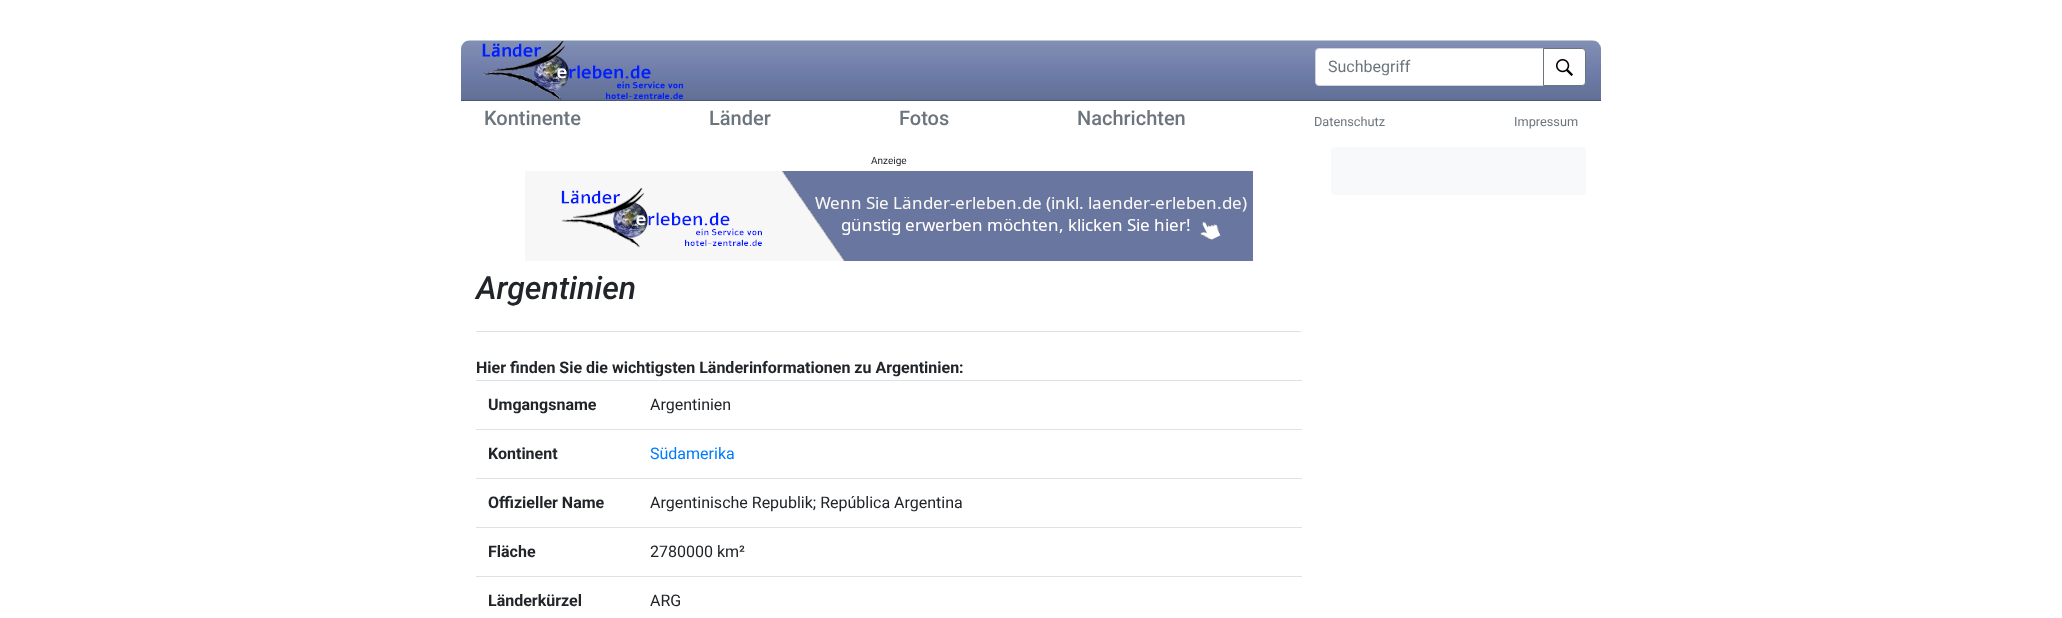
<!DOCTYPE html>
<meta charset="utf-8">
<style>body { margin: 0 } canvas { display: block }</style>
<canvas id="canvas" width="2062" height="618"></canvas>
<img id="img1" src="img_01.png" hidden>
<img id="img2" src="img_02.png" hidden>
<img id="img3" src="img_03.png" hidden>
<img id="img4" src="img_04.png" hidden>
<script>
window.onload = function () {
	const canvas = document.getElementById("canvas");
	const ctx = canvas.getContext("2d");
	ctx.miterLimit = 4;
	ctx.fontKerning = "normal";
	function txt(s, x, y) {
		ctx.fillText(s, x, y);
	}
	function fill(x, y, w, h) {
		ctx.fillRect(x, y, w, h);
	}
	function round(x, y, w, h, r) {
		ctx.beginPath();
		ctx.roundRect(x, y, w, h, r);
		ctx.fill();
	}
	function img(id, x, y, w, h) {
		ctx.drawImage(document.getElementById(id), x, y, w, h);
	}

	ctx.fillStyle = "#FFFFFF";
	fill(0, 0, 2062, 618);
	img("img1", 461, 40, 1140, 61);
	img("img2", 482, 41, 201, 60);
	ctx.beginPath();
	ctx.roundRect(1315.5, 48.5, 228, 37, [3.5, 0, 0, 3.5]);
	ctx.fill();
	ctx.strokeStyle = "#CED4DA";
	ctx.stroke();
	ctx.beginPath();
	ctx.roundRect(1543.5, 48.5, 42, 37, [0, 3.5, 3.5, 0]);
	ctx.fill();
	ctx.strokeStyle = "#6C757D";
	ctx.stroke();
	img("img3", 1556, 59, 17, 17);
	img("img4", 525, 171, 728, 90);
	ctx.fillStyle = "#DEE2E6";
	fill(476, 331, 825, 1);
	fill(476, 380, 826, 1);
	fill(476, 429, 826, 1);
	fill(476, 478, 826, 1);
	fill(476, 527, 826, 1);
	fill(476, 576, 826, 1);
	ctx.fillStyle = "#F8F9FA";
	round(1331, 147, 255, 48, 4);
	ctx.font = "16px Roboto";
	ctx.fillStyle = "#6C757D";
	txt("Suchbegriff", 1328, 72);
	ctx.font = "500 20px Roboto";
	txt("Kontinente", 484, 125);
	txt("Länder", 709, 125);
	txt("Fotos", 899, 125);
	txt("Nachrichten", 1077, 125);
	ctx.font = "12.75px Roboto";
	txt("Datenschutz", 1314, 126);
	txt("Impressum", 1514, 126);
	ctx.font = "10px Roboto";
	ctx.fillStyle = "#212529";
	txt("Anzeige", 871, 164);
	ctx.font = "italic 500 32px Roboto";
	txt("Argentinien", 476, 299);
	ctx.font = "bold 16px Roboto";
	txt("Hier finden Sie die wichtigsten Länderinformationen zu Argentinien:", 476, 373);
	txt("Umgangsname", 488, 410);
	ctx.font = "16px Roboto";
	txt("Argentinien", 650, 410);
	ctx.font = "bold 16px Roboto";
	txt("Kontinent", 488, 459);
	ctx.font = "16px Roboto";
	ctx.fillStyle = "#007BFF";
	txt("Südamerika", 650, 459);
	ctx.font = "bold 16px Roboto";
	ctx.fillStyle = "#212529";
	txt("Offizieller Name", 488, 508);
	ctx.font = "16px Roboto";
	txt("Argentinische Republik; República Argentina", 650, 508);
	ctx.font = "bold 16px Roboto";
	txt("Fläche", 488, 557);
	ctx.font = "16px Roboto";
	txt("2780000 km²", 650, 557);
	ctx.font = "bold 16px Roboto";
	txt("Länderkürzel", 488, 606);
	ctx.font = "16px Roboto";
	txt("ARG", 650, 606);
};
</script>
